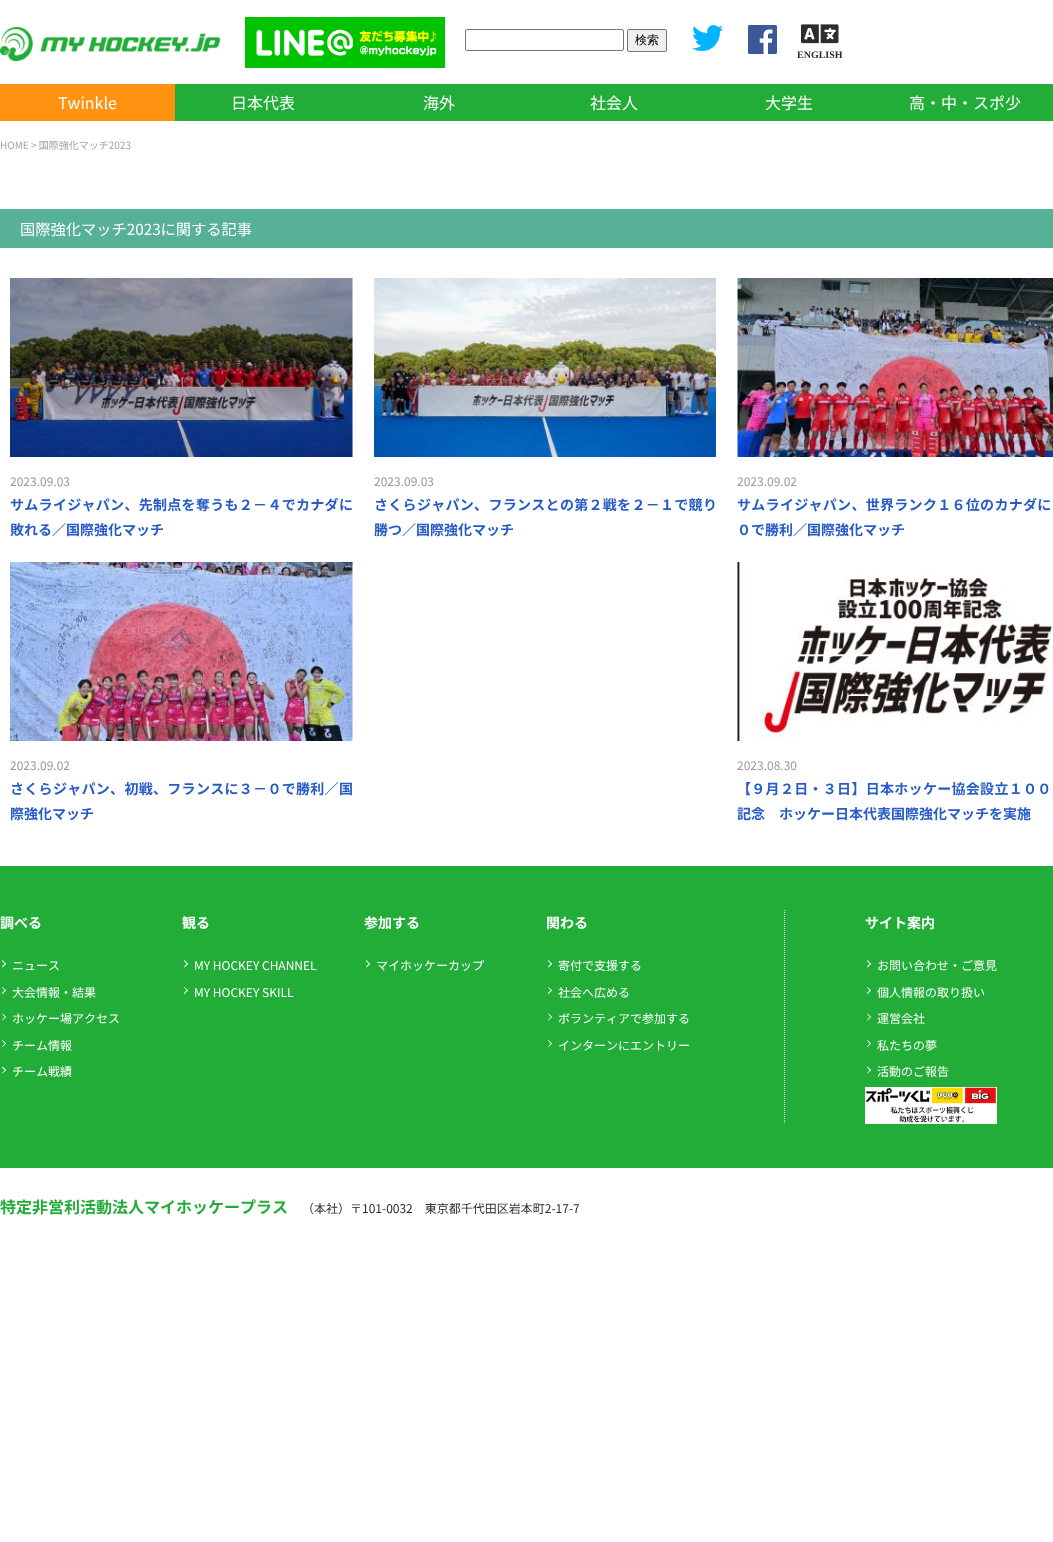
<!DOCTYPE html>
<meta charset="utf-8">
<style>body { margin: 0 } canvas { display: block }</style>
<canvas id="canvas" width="1053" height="1542"></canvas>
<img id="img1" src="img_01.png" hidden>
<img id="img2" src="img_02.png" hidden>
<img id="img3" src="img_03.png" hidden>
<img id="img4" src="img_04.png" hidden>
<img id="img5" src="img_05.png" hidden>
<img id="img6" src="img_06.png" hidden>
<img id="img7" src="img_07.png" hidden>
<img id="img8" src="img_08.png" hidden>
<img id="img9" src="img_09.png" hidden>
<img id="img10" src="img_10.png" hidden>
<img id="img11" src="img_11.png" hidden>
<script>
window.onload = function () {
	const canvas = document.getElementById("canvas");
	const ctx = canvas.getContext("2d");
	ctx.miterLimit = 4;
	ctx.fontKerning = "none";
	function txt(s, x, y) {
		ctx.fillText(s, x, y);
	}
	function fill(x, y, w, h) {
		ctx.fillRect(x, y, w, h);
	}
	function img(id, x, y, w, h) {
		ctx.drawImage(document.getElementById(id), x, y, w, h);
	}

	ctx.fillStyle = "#FFFFFF";
	fill(0, 0, 1053, 1542);
	img("img1", 0, 27, 220, 34);
	img("img2", 245, 17, 200, 51);
	ctx.beginPath();
	ctx.roundRect(465.5, 29.5, 158, 21, 1.5);
	ctx.strokeStyle = "#767676";
	ctx.stroke();
	ctx.fillStyle = "#EFEFEF";
	ctx.beginPath();
	ctx.roundRect(627.5, 29.5, 39, 22, 1.5);
	ctx.fill();
	ctx.stroke();
	img("img3", 692, 25, 31, 26);
	img("img4", 748, 25, 29, 29);
	img("img5", 801, 24, 38, 20);
	ctx.fillStyle = "#22AC38";
	fill(175, 84, 878, 37);
	ctx.fillStyle = "#FF9311";
	fill(0, 84, 175, 37);
	ctx.fillStyle = "#57B196";
	fill(0, 209, 1053, 39);
	img("img6", 10, 278, 343, 179);
	img("img7", 374, 278, 342, 179);
	img("img8", 737, 278, 316, 179);
	img("img9", 10, 562, 343, 179);
	img("img10", 737, 562, 316, 179);
	ctx.fillStyle = "#22AC38";
	fill(0, 866, 1053, 302);
	ctx.fillStyle = "#FFFFFF";
	ctx.beginPath();
	ctx.moveTo(2, 961);
	ctx.lineTo(2.5, 960);
	ctx.lineTo(6, 964);
	ctx.lineTo(5.5, 964.5);
	ctx.closePath();
	ctx.fill();
	ctx.beginPath();
	ctx.moveTo(2, 966.5);
	ctx.lineTo(5.5, 963);
	ctx.lineTo(6, 964);
	ctx.lineTo(2.5, 967.5);
	ctx.closePath();
	ctx.fill();
	ctx.beginPath();
	ctx.moveTo(2, 987.5);
	ctx.lineTo(2.5, 987);
	ctx.lineTo(6, 990.5);
	ctx.lineTo(5.5, 991);
	ctx.closePath();
	ctx.fill();
	ctx.beginPath();
	ctx.moveTo(2, 993);
	ctx.lineTo(5.5, 989.5);
	ctx.lineTo(6, 990.5);
	ctx.lineTo(2.5, 994);
	ctx.closePath();
	ctx.fill();
	ctx.beginPath();
	ctx.moveTo(2, 1014);
	ctx.lineTo(2.5, 1013.5);
	ctx.lineTo(6, 1017);
	ctx.lineTo(5.5, 1017.5);
	ctx.closePath();
	ctx.fill();
	ctx.beginPath();
	ctx.moveTo(2, 1020);
	ctx.lineTo(5.5, 1016.5);
	ctx.lineTo(6, 1017);
	ctx.lineTo(2.5, 1020.5);
	ctx.closePath();
	ctx.fill();
	ctx.beginPath();
	ctx.moveTo(2, 1040.5);
	ctx.lineTo(2.5, 1040);
	ctx.lineTo(6, 1043.5);
	ctx.lineTo(5.5, 1044.5);
	ctx.closePath();
	ctx.fill();
	ctx.beginPath();
	ctx.moveTo(2, 1046.5);
	ctx.lineTo(5.5, 1043);
	ctx.lineTo(6, 1043.5);
	ctx.lineTo(2.5, 1047);
	ctx.closePath();
	ctx.fill();
	ctx.beginPath();
	ctx.moveTo(2, 1067.5);
	ctx.lineTo(2.5, 1066.5);
	ctx.lineTo(6, 1070);
	ctx.lineTo(5.5, 1071);
	ctx.closePath();
	ctx.fill();
	ctx.beginPath();
	ctx.moveTo(2, 1073);
	ctx.lineTo(5.5, 1069.5);
	ctx.lineTo(6, 1070);
	ctx.lineTo(2.5, 1073.5);
	ctx.closePath();
	ctx.fill();
	ctx.beginPath();
	ctx.moveTo(184, 961);
	ctx.lineTo(184.5, 960);
	ctx.lineTo(188, 964);
	ctx.lineTo(187.5, 964.5);
	ctx.closePath();
	ctx.fill();
	ctx.beginPath();
	ctx.moveTo(184, 966.5);
	ctx.lineTo(187.5, 963);
	ctx.lineTo(188, 964);
	ctx.lineTo(184.5, 967.5);
	ctx.closePath();
	ctx.fill();
	ctx.beginPath();
	ctx.moveTo(184, 987.5);
	ctx.lineTo(184.5, 987);
	ctx.lineTo(188, 990.5);
	ctx.lineTo(187.5, 991);
	ctx.closePath();
	ctx.fill();
	ctx.beginPath();
	ctx.moveTo(184, 993);
	ctx.lineTo(187.5, 989.5);
	ctx.lineTo(188, 990.5);
	ctx.lineTo(184.5, 994);
	ctx.closePath();
	ctx.fill();
	ctx.beginPath();
	ctx.moveTo(366, 961);
	ctx.lineTo(366.5, 960);
	ctx.lineTo(370, 964);
	ctx.lineTo(369.5, 964.5);
	ctx.closePath();
	ctx.fill();
	ctx.beginPath();
	ctx.moveTo(366, 966.5);
	ctx.lineTo(369.5, 963);
	ctx.lineTo(370, 964);
	ctx.lineTo(366.5, 967.5);
	ctx.closePath();
	ctx.fill();
	ctx.beginPath();
	ctx.moveTo(548, 961);
	ctx.lineTo(548.5, 960);
	ctx.lineTo(552, 964);
	ctx.lineTo(551.5, 964.5);
	ctx.closePath();
	ctx.fill();
	ctx.beginPath();
	ctx.moveTo(548, 966.5);
	ctx.lineTo(551.5, 963);
	ctx.lineTo(552, 964);
	ctx.lineTo(548.5, 967.5);
	ctx.closePath();
	ctx.fill();
	ctx.beginPath();
	ctx.moveTo(548, 987.5);
	ctx.lineTo(548.5, 987);
	ctx.lineTo(552, 990.5);
	ctx.lineTo(551.5, 991);
	ctx.closePath();
	ctx.fill();
	ctx.beginPath();
	ctx.moveTo(548, 993);
	ctx.lineTo(551.5, 989.5);
	ctx.lineTo(552, 990.5);
	ctx.lineTo(548.5, 994);
	ctx.closePath();
	ctx.fill();
	ctx.beginPath();
	ctx.moveTo(548, 1014);
	ctx.lineTo(548.5, 1013.5);
	ctx.lineTo(552, 1017);
	ctx.lineTo(551.5, 1017.5);
	ctx.closePath();
	ctx.fill();
	ctx.beginPath();
	ctx.moveTo(548, 1020);
	ctx.lineTo(551.5, 1016.5);
	ctx.lineTo(552, 1017);
	ctx.lineTo(548.5, 1020.5);
	ctx.closePath();
	ctx.fill();
	ctx.beginPath();
	ctx.moveTo(548, 1040.5);
	ctx.lineTo(548.5, 1040);
	ctx.lineTo(552, 1043.5);
	ctx.lineTo(551.5, 1044.5);
	ctx.closePath();
	ctx.fill();
	ctx.beginPath();
	ctx.moveTo(548, 1046.5);
	ctx.lineTo(551.5, 1043);
	ctx.lineTo(552, 1043.5);
	ctx.lineTo(548.5, 1047);
	ctx.closePath();
	ctx.fill();
	ctx.beginPath();
	ctx.moveTo(784.5, 910);
	ctx.lineTo(784.5, 1124);
	ctx.strokeStyle = "#FFFFFF";
	ctx.setLineDash([1, 1]);
	ctx.stroke();
	ctx.beginPath();
	ctx.moveTo(867, 961);
	ctx.lineTo(867.5, 960);
	ctx.lineTo(871, 964);
	ctx.lineTo(870.5, 964.5);
	ctx.closePath();
	ctx.fill();
	ctx.beginPath();
	ctx.moveTo(867, 966.5);
	ctx.lineTo(870.5, 963);
	ctx.lineTo(871, 964);
	ctx.lineTo(867.5, 967.5);
	ctx.closePath();
	ctx.fill();
	ctx.beginPath();
	ctx.moveTo(867, 987.5);
	ctx.lineTo(867.5, 987);
	ctx.lineTo(871, 990.5);
	ctx.lineTo(870.5, 991);
	ctx.closePath();
	ctx.fill();
	ctx.beginPath();
	ctx.moveTo(867, 993);
	ctx.lineTo(870.5, 989.5);
	ctx.lineTo(871, 990.5);
	ctx.lineTo(867.5, 994);
	ctx.closePath();
	ctx.fill();
	ctx.beginPath();
	ctx.moveTo(867, 1014);
	ctx.lineTo(867.5, 1013.5);
	ctx.lineTo(871, 1017);
	ctx.lineTo(870.5, 1017.5);
	ctx.closePath();
	ctx.fill();
	ctx.beginPath();
	ctx.moveTo(867, 1020);
	ctx.lineTo(870.5, 1016.5);
	ctx.lineTo(871, 1017);
	ctx.lineTo(867.5, 1020.5);
	ctx.closePath();
	ctx.fill();
	ctx.beginPath();
	ctx.moveTo(867, 1040.5);
	ctx.lineTo(867.5, 1040);
	ctx.lineTo(871, 1043.5);
	ctx.lineTo(870.5, 1044.5);
	ctx.closePath();
	ctx.fill();
	ctx.beginPath();
	ctx.moveTo(867, 1046.5);
	ctx.lineTo(870.5, 1043);
	ctx.lineTo(871, 1043.5);
	ctx.lineTo(867.5, 1047);
	ctx.closePath();
	ctx.fill();
	ctx.beginPath();
	ctx.moveTo(867, 1067.5);
	ctx.lineTo(867.5, 1066.5);
	ctx.lineTo(871, 1070);
	ctx.lineTo(870.5, 1071);
	ctx.closePath();
	ctx.fill();
	ctx.beginPath();
	ctx.moveTo(867, 1073);
	ctx.lineTo(870.5, 1069.5);
	ctx.lineTo(871, 1070);
	ctx.lineTo(867.5, 1073.5);
	ctx.closePath();
	ctx.fill();
	img("img11", 865, 1087, 132, 37);
	ctx.font = "500 12px WenQuanYi Zen Hei";
	ctx.fillStyle = "#000000";
	txt("検索", 635, 44);
	ctx.font = "bold 10px Liberation Serif";
	ctx.fillStyle = "#2D2D2D";
	txt("ENGLISH", 797, 58);
	ctx.font = "16px Noto Sans JP";
	ctx.fillStyle = "#FFFFFF";
	txt("Twinkle", 58, 109);
	txt("日本代表", 231, 109);
	txt("海外", 423, 109);
	txt("社会人", 590, 109);
	txt("大学生", 765, 109);
	txt("高・中・スポ少", 909, 109);
	ctx.font = "10px Noto Sans JP";
	ctx.fillStyle = "#A2A2A2";
	txt("HOME > 国際強化マッチ2023", 0, 149);
	ctx.font = "15.25px Noto Sans JP";
	ctx.fillStyle = "#FFFFFF";
	txt("国際強化マッチ2023に関する記事", 20, 235);
	ctx.font = "12px Noto Sans JP";
	ctx.fillStyle = "#9B9B9B";
	txt("2023.09.03", 10, 486);
	ctx.letterSpacing = "0.3px";
	ctx.font = "bold 14px Noto Sans JP";
	ctx.fillStyle = "#275CC8";
	txt("サムライジャパン、先制点を奪うも２－４でカナダに", 10, 510);
	ctx.letterSpacing = "0px";
	txt("敗れる／国際強化マッチ", 10, 535);
	ctx.font = "12px Noto Sans JP";
	ctx.fillStyle = "#9B9B9B";
	txt("2023.09.03", 374, 486);
	ctx.letterSpacing = "0.3px";
	ctx.font = "bold 14px Noto Sans JP";
	ctx.fillStyle = "#275CC8";
	txt("さくらジャパン、フランスとの第２戦を２－１で競り", 374, 510);
	ctx.letterSpacing = "0px";
	txt("勝つ／国際強化マッチ", 374, 535);
	ctx.font = "12px Noto Sans JP";
	ctx.fillStyle = "#9B9B9B";
	txt("2023.09.02", 737, 486);
	ctx.letterSpacing = "0.3px";
	ctx.font = "bold 14px Noto Sans JP";
	ctx.fillStyle = "#275CC8";
	txt("サムライジャパン、世界ランク１６位のカナダに", 737, 510);
	ctx.letterSpacing = "0px";
	txt("０で勝利／国際強化マッチ", 737, 535);
	ctx.font = "12px Noto Sans JP";
	ctx.fillStyle = "#9B9B9B";
	txt("2023.09.02", 10, 770);
	ctx.letterSpacing = "0.3px";
	ctx.font = "bold 14px Noto Sans JP";
	ctx.fillStyle = "#275CC8";
	txt("さくらジャパン、初戦、フランスに３－０で勝利／国", 10, 794);
	ctx.letterSpacing = "0px";
	txt("際強化マッチ", 10, 819);
	ctx.font = "12px Noto Sans JP";
	ctx.fillStyle = "#9B9B9B";
	txt("2023.08.30", 737, 770);
	ctx.letterSpacing = "0.3px";
	ctx.font = "bold 14px Noto Sans JP";
	ctx.fillStyle = "#275CC8";
	txt("【９月２日・３日】日本ホッケー協会設立１００", 737, 794);
	ctx.letterSpacing = "0px";
	txt("記念　ホッケー日本代表国際強化マッチを実施", 737, 819);
	ctx.fillStyle = "#FFFFFF";
	txt("調べる", 0, 928);
	ctx.font = "12px Noto Sans JP";
	txt("ニュース", 12, 970);
	txt("大会情報・結果", 12, 997);
	txt("ホッケー場アクセス", 12, 1023);
	txt("チーム情報", 12, 1050);
	txt("チーム戦績", 12, 1076);
	ctx.font = "bold 14px Noto Sans JP";
	txt("観る", 182, 928);
	ctx.font = "12px Noto Sans JP";
	txt("MY HOCKEY CHANNEL", 194, 970);
	txt("MY HOCKEY SKILL", 194, 997);
	ctx.font = "bold 14px Noto Sans JP";
	txt("参加する", 364, 928);
	ctx.font = "12px Noto Sans JP";
	txt("マイホッケーカップ", 376, 970);
	ctx.font = "bold 14px Noto Sans JP";
	txt("関わる", 546, 928);
	ctx.font = "12px Noto Sans JP";
	txt("寄付で支援する", 558, 970);
	txt("社会へ広める", 558, 997);
	txt("ボランティアで参加する", 558, 1023);
	txt("インターンにエントリー", 558, 1050);
	ctx.font = "bold 14px Noto Sans JP";
	txt("サイト案内", 865, 928);
	ctx.font = "12px Noto Sans JP";
	txt("お問い合わせ・ご意見", 877, 970);
	txt("個人情報の取り扱い", 877, 997);
	txt("運営会社", 877, 1023);
	txt("私たちの夢", 877, 1050);
	txt("活動のご報告", 877, 1076);
	ctx.font = "bold 16px Noto Sans JP";
	ctx.fillStyle = "#22AC38";
	txt("特定非営利活動法人マイホッケープラス", 0, 1213);
	ctx.font = "12px Noto Sans JP";
	ctx.fillStyle = "#2D2D2D";
	txt("（本社）〒101-0032　東京都千代田区岩本町2-17-7", 302, 1213);
};
</script>
